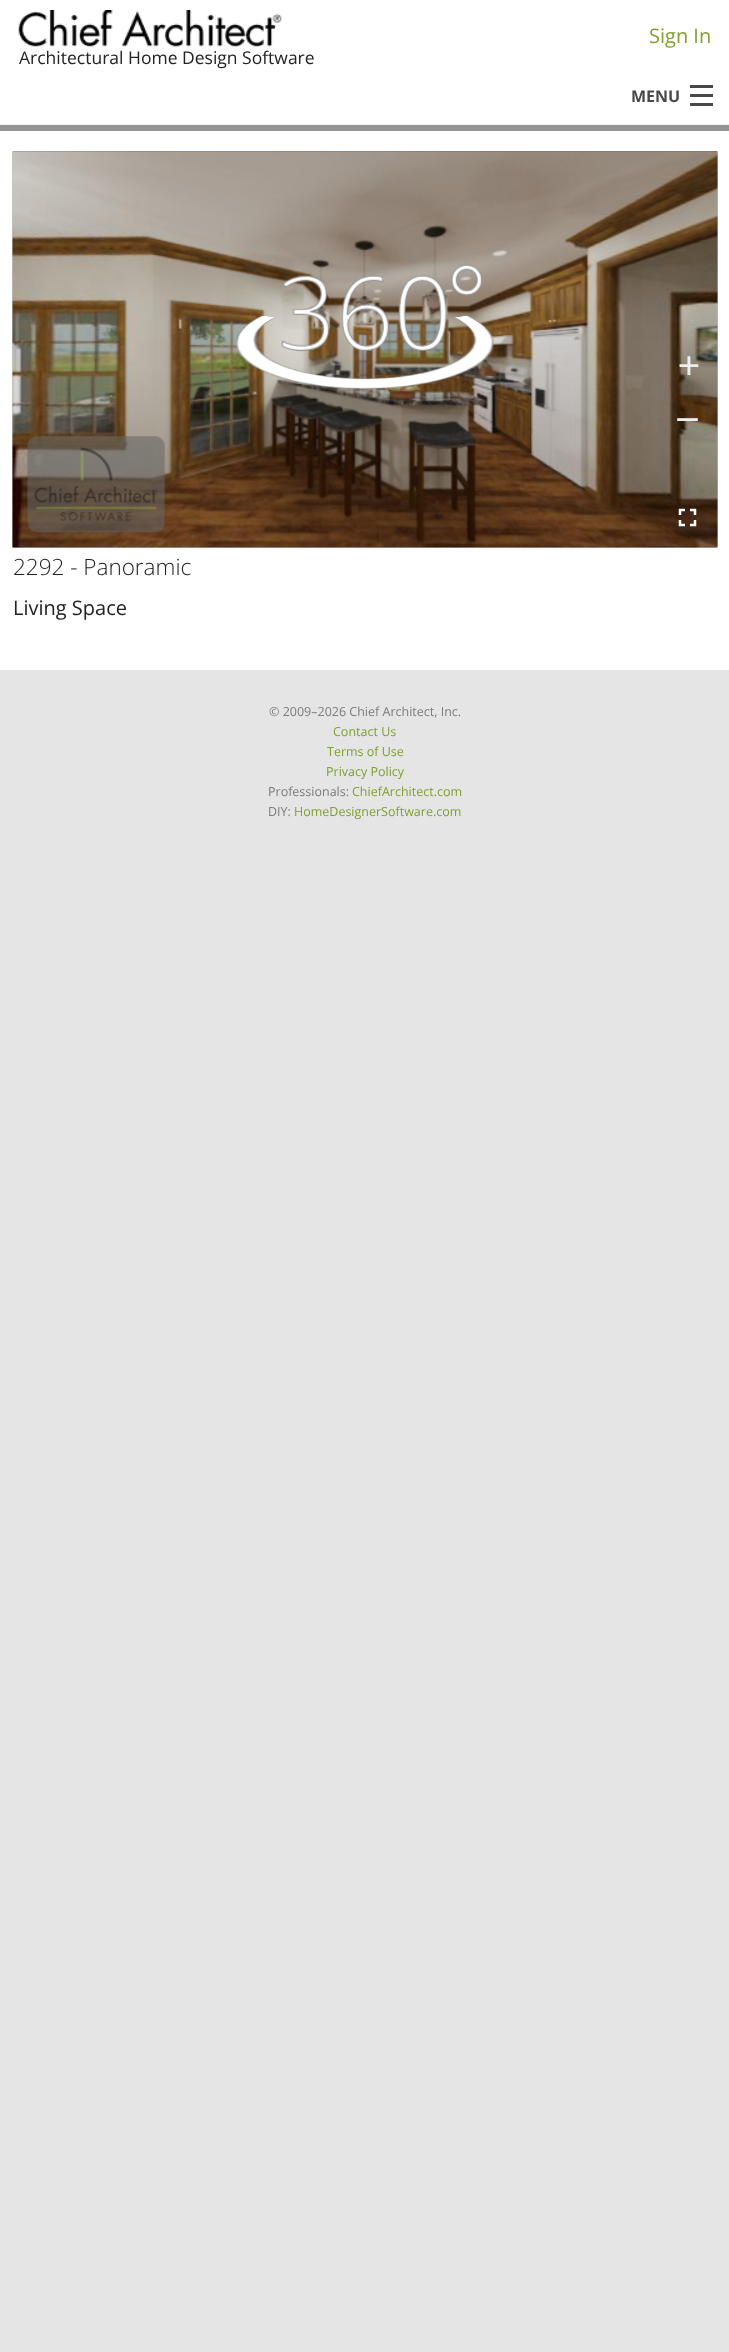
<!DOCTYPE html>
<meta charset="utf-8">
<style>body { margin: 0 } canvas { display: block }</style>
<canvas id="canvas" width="729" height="2352"></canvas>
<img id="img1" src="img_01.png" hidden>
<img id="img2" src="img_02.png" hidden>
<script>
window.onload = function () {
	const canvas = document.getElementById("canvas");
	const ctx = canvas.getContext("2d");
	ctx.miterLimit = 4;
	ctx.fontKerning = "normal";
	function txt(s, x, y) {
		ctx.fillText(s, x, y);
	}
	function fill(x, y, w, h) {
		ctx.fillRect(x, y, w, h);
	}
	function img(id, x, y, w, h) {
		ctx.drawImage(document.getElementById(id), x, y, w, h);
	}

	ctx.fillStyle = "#E5E5E5";
	fill(0, 0, 729, 2352);
	ctx.fillStyle = "#FFFFFF";
	fill(0, 0, 729, 670);
	ctx.fillStyle = "#939393";
	fill(0, 125, 729, 6);
	img("img1", 18, 10, 264, 37);
	ctx.fillStyle = "#484848";
	fill(690, 103, 23, 3);
	fill(690, 94, 23, 3);
	fill(690, 85, 23, 3);
	ctx.fillStyle = "#F1F1F1";
	fill(0, 124, 729, 1);
	img("img2", 12, 151, 706, 397);
	ctx.font = "20px Open Sans";
	ctx.fillStyle = "#80A030";
	txt("Sign In", 649, 43);
	ctx.font = "17.5px Open Sans";
	ctx.fillStyle = "#222222";
	txt("Architectural Home Design Software", 19, 64);
	ctx.font = "bold 16px Open Sans";
	ctx.fillStyle = "#484848";
	txt("MENU", 631, 102);
	ctx.font = "300 22.5px Open Sans";
	ctx.fillStyle = "#222222";
	txt("2292 - Panoramic", 13, 575);
	ctx.font = "20px Open Sans";
	txt("Living Space", 13, 615);
	ctx.font = "12.5px Open Sans";
	ctx.fillStyle = "#7C7C7C";
	txt("© 2009–2026 Chief Architect, Inc.", 269, 716);
	ctx.fillStyle = "#80A030";
	txt("Contact Us", 333, 736);
	txt("Terms of Use", 327, 756);
	txt("Privacy Policy", 326, 776);
	ctx.fillStyle = "#7C7C7C";
	txt("Professionals:", 268, 796);
	ctx.fillStyle = "#80A030";
	txt("ChiefArchitect.com", 352, 796);
	ctx.fillStyle = "#7C7C7C";
	txt("DIY:", 268, 816);
	ctx.fillStyle = "#80A030";
	txt("HomeDesignerSoftware.com", 294, 816);
};
</script>
